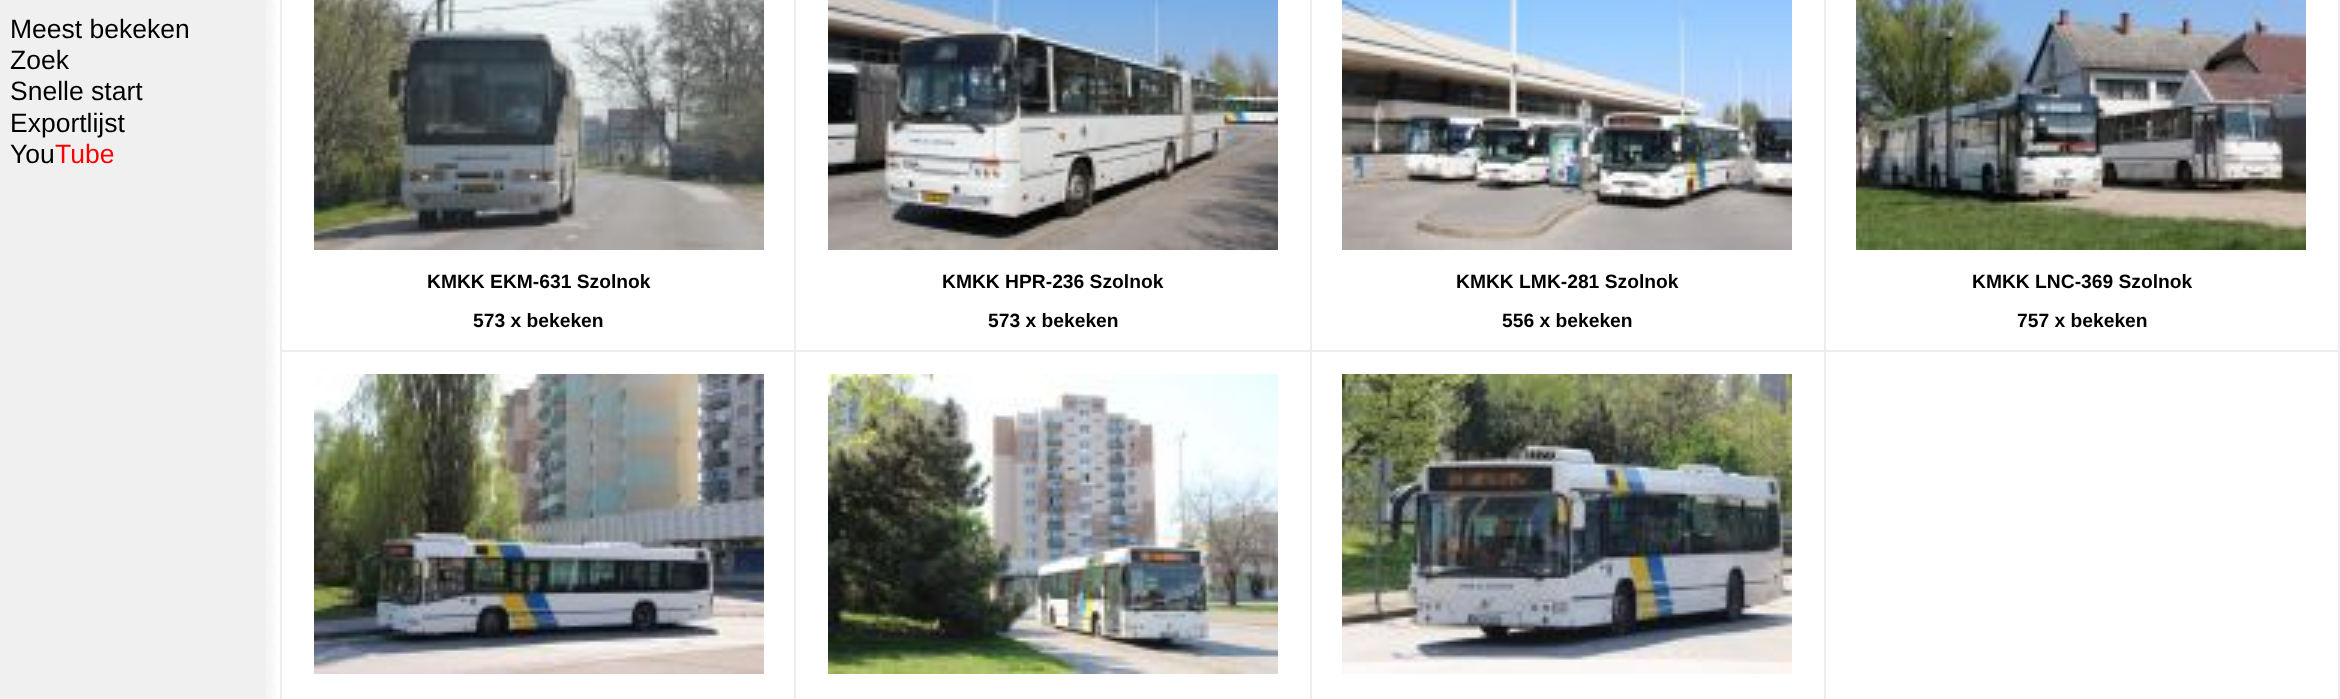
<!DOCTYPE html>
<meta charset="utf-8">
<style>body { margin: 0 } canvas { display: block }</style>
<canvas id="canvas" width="2340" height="699"></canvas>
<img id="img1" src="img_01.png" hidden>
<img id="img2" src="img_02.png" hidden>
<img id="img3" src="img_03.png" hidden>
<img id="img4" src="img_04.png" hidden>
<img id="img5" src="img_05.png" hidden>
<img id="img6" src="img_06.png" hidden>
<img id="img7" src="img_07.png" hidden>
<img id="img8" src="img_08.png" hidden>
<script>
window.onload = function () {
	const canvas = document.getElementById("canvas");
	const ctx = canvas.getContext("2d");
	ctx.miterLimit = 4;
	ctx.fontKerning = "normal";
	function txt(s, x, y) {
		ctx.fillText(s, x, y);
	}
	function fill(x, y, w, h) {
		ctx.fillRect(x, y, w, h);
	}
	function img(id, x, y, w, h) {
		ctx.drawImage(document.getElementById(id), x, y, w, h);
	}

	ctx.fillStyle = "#F0F0F0";
	fill(0, 0, 2340, 699);
	img("img1", 260, 0, 20, 699);
	ctx.fillStyle = "#ECECF1";
	fill(280, 0, 2060, 699);
	ctx.fillStyle = "#FFFFFF";
	fill(282, 0, 512, 350);
	img("img2", 314, 0, 450, 250);
	fill(796, 0, 514, 350);
	img("img3", 828, 0, 450, 250);
	fill(1312, 0, 512, 350);
	img("img4", 1342, 0, 450, 250);
	fill(1826, 0, 512, 350);
	img("img5", 1856, 0, 450, 250);
	fill(282, 352, 512, 347);
	img("img6", 314, 374, 450, 300);
	fill(796, 352, 514, 347);
	img("img7", 828, 374, 450, 300);
	fill(1312, 352, 512, 347);
	img("img8", 1342, 374, 450, 300);
	fill(1826, 352, 512, 347);
	ctx.font = "26.5px Liberation Sans";
	ctx.fillStyle = "#000000";
	txt("Meest bekeken", 10, 38);
	txt("Zoek", 10, 69);
	txt("Snelle start", 10, 100);
	txt("Exportlijst", 10, 132);
	txt("You", 10, 163);
	ctx.fillStyle = "#FF0000";
	txt("Tube", 55, 163);
	ctx.font = "bold 19.25px Liberation Sans";
	ctx.fillStyle = "#000000";
	txt("KMKK EKM-631 Szolnok", 427, 288);
	txt("573 x bekeken", 473, 327);
	txt("KMKK HPR-236 Szolnok", 942, 288);
	txt("573 x bekeken", 988, 327);
	txt("KMKK LMK-281 Szolnok", 1456, 288);
	txt("556 x bekeken", 1502, 327);
	txt("KMKK LNC-369 Szolnok", 1972, 288);
	txt("757 x bekeken", 2017, 327);
};
</script>
